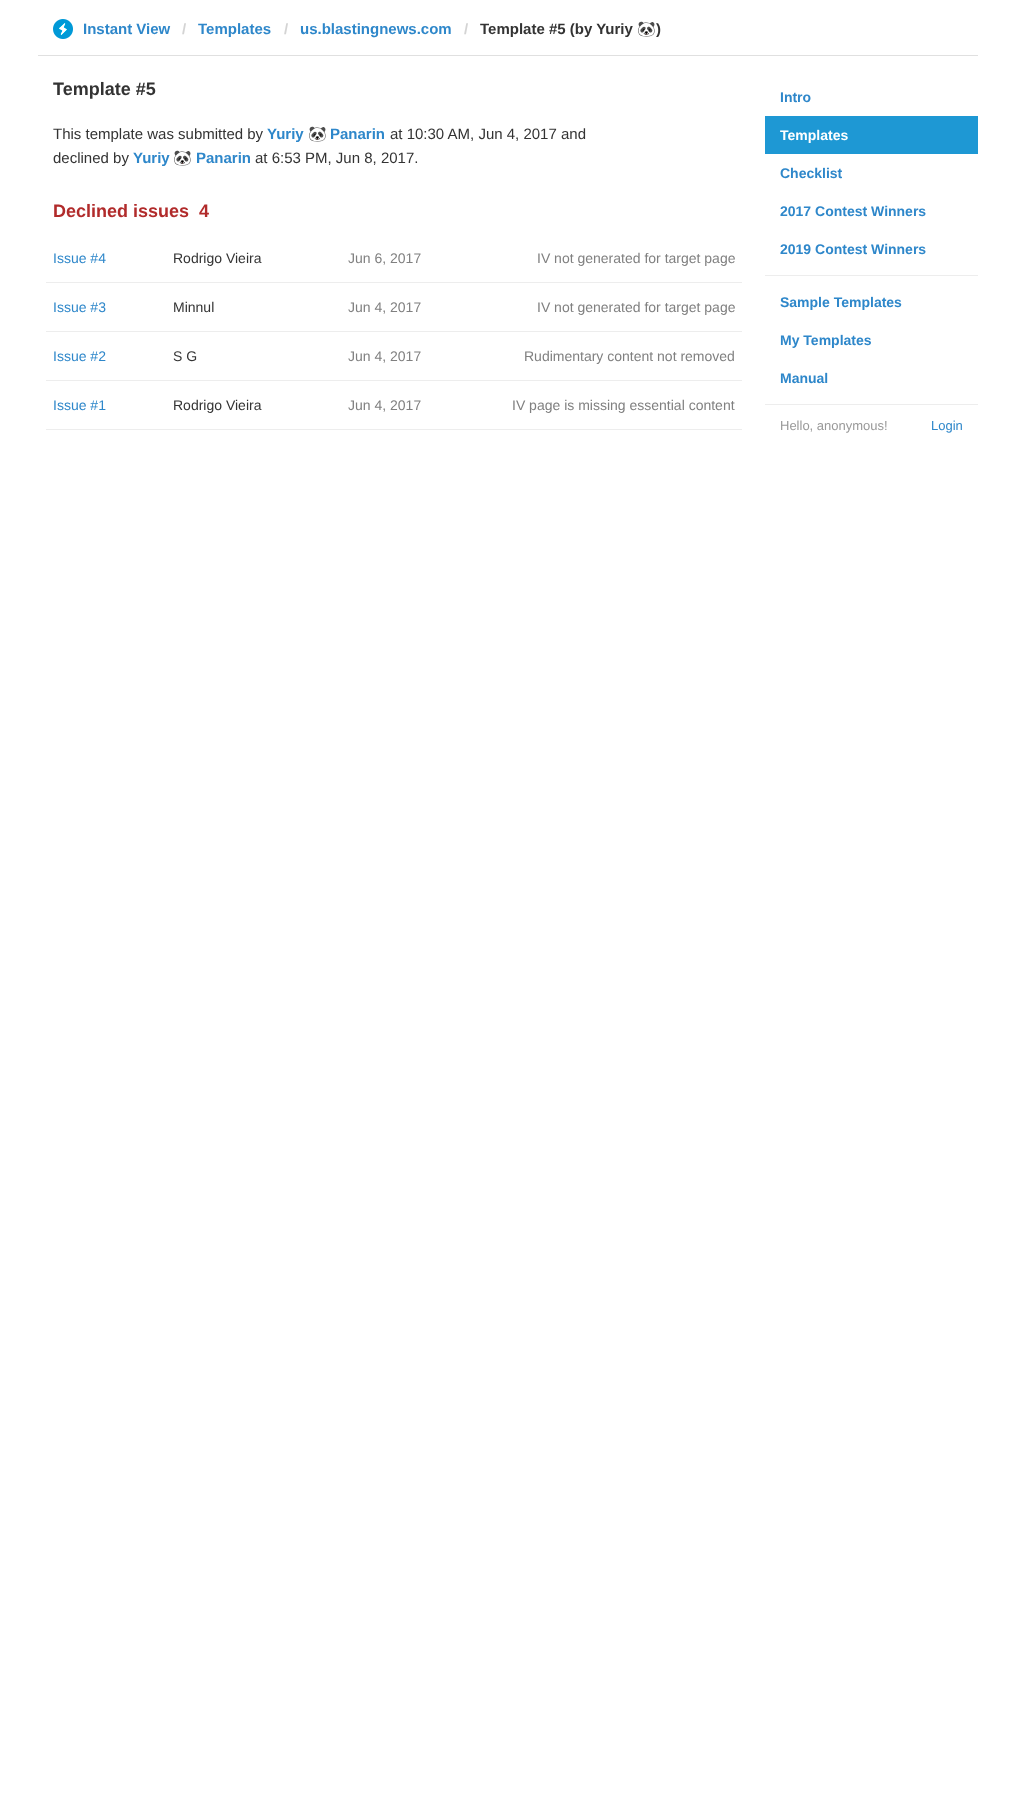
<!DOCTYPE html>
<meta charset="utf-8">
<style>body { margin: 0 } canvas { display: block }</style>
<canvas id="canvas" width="1015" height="1820"></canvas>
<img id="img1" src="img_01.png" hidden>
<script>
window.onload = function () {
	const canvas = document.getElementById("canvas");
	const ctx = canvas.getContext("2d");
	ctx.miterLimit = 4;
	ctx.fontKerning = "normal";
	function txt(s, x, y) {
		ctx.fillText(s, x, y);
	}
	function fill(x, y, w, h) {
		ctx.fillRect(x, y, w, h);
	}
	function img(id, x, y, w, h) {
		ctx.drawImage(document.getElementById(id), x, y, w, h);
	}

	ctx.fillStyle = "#FFFFFF";
	fill(0, 0, 1015, 1820);
	ctx.fillStyle = "#E0E0E0";
	fill(38, 55, 940, 1);
	img("img1", 53, 19, 20, 20);
	ctx.fillStyle = "#EDEDED";
	fill(46, 282, 696, 1);
	fill(46, 331, 696, 1);
	fill(46, 380, 696, 1);
	fill(46, 429, 696, 1);
	ctx.fillStyle = "#1E98D4";
	fill(765, 116, 213, 38);
	ctx.fillStyle = "#EDEDED";
	fill(765, 275, 213, 1);
	fill(765, 404, 213, 1);
	ctx.font = "bold 15px Liberation Sans";
	ctx.fillStyle = "#2E87CA";
	txt("Instant View", 83, 34);
	ctx.fillStyle = "#D4D4D4";
	txt("/", 182, 34);
	ctx.fillStyle = "#2E87CA";
	txt("Templates", 198, 34);
	ctx.fillStyle = "#D4D4D4";
	txt("/", 284, 34);
	ctx.fillStyle = "#2E87CA";
	txt("us.blastingnews.com", 300, 34);
	ctx.fillStyle = "#D4D4D4";
	txt("/", 464, 34);
	ctx.fillStyle = "#333333";
	txt("Template #5 (by Yuriy", 480, 34);
	ctx.font = "bold 15px Noto Color Emoji";
	txt("🐼", 637, 34);
	ctx.font = "bold 15px Liberation Sans";
	txt(")", 656, 34);
	ctx.save();
	ctx.beginPath();
	ctx.rect(53, 68, 682, 54);
	ctx.clip();
	ctx.font = "bold 18px Liberation Sans";
	txt("Template #5", 53, 95);
	ctx.restore();
	ctx.font = "15px Liberation Sans";
	txt("This template was submitted by", 53, 139);
	ctx.font = "bold 15px Liberation Sans";
	ctx.fillStyle = "#2E87CA";
	txt("Yuriy", 267, 139);
	ctx.font = "bold 15px Noto Color Emoji";
	txt("🐼", 308, 139);
	ctx.font = "bold 15px Liberation Sans";
	txt("Panarin", 330, 139);
	ctx.font = "15px Liberation Sans";
	ctx.fillStyle = "#333333";
	txt("at 10:30 AM, Jun 4, 2017 and", 390, 139);
	txt("declined by", 53, 163);
	ctx.font = "bold 15px Liberation Sans";
	ctx.fillStyle = "#2E87CA";
	txt("Yuriy", 133, 163);
	ctx.font = "bold 15px Noto Color Emoji";
	txt("🐼", 173, 163);
	ctx.font = "bold 15px Liberation Sans";
	txt("Panarin", 196, 163);
	ctx.font = "15px Liberation Sans";
	ctx.fillStyle = "#333333";
	txt("at 6:53 PM, Jun 8, 2017.", 255, 163);
	ctx.font = "bold 18px Liberation Sans";
	ctx.fillStyle = "#B12B2B";
	txt("Declined issues", 53, 217);
	txt("4", 199, 217);
	ctx.font = "14px Liberation Sans";
	ctx.fillStyle = "#2E87CA";
	txt("Issue #4", 53, 263);
	ctx.fillStyle = "#333333";
	txt("Rodrigo Vieira", 173, 263);
	ctx.fillStyle = "#808080";
	txt("Jun 6, 2017", 348, 263);
	txt("IV not generated for target page", 537, 263);
	ctx.fillStyle = "#2E87CA";
	txt("Issue #3", 53, 312);
	ctx.fillStyle = "#333333";
	txt("Minnul", 173, 312);
	ctx.fillStyle = "#808080";
	txt("Jun 4, 2017", 348, 312);
	txt("IV not generated for target page", 537, 312);
	ctx.fillStyle = "#2E87CA";
	txt("Issue #2", 53, 361);
	ctx.fillStyle = "#333333";
	txt("S G", 173, 361);
	ctx.fillStyle = "#808080";
	txt("Jun 4, 2017", 348, 361);
	txt("Rudimentary content not removed", 524, 361);
	ctx.fillStyle = "#2E87CA";
	txt("Issue #1", 53, 410);
	ctx.fillStyle = "#333333";
	txt("Rodrigo Vieira", 173, 410);
	ctx.fillStyle = "#808080";
	txt("Jun 4, 2017", 348, 410);
	txt("IV page is missing essential content", 512, 410);
	ctx.font = "bold 14px Liberation Sans";
	ctx.fillStyle = "#2E87CA";
	txt("Intro", 780, 102);
	ctx.fillStyle = "#FFFFFF";
	txt("Templates", 780, 140);
	ctx.fillStyle = "#2E87CA";
	txt("Checklist", 780, 178);
	txt("2017 Contest Winners", 780, 216);
	txt("2019 Contest Winners", 780, 254);
	txt("Sample Templates", 780, 307);
	txt("My Templates", 780, 345);
	txt("Manual", 780, 383);
	ctx.font = "13px Liberation Sans";
	ctx.fillStyle = "#999999";
	txt("Hello, anonymous!", 780, 430);
	ctx.fillStyle = "#2E87CA";
	txt("Login", 931, 430);
};
</script>
